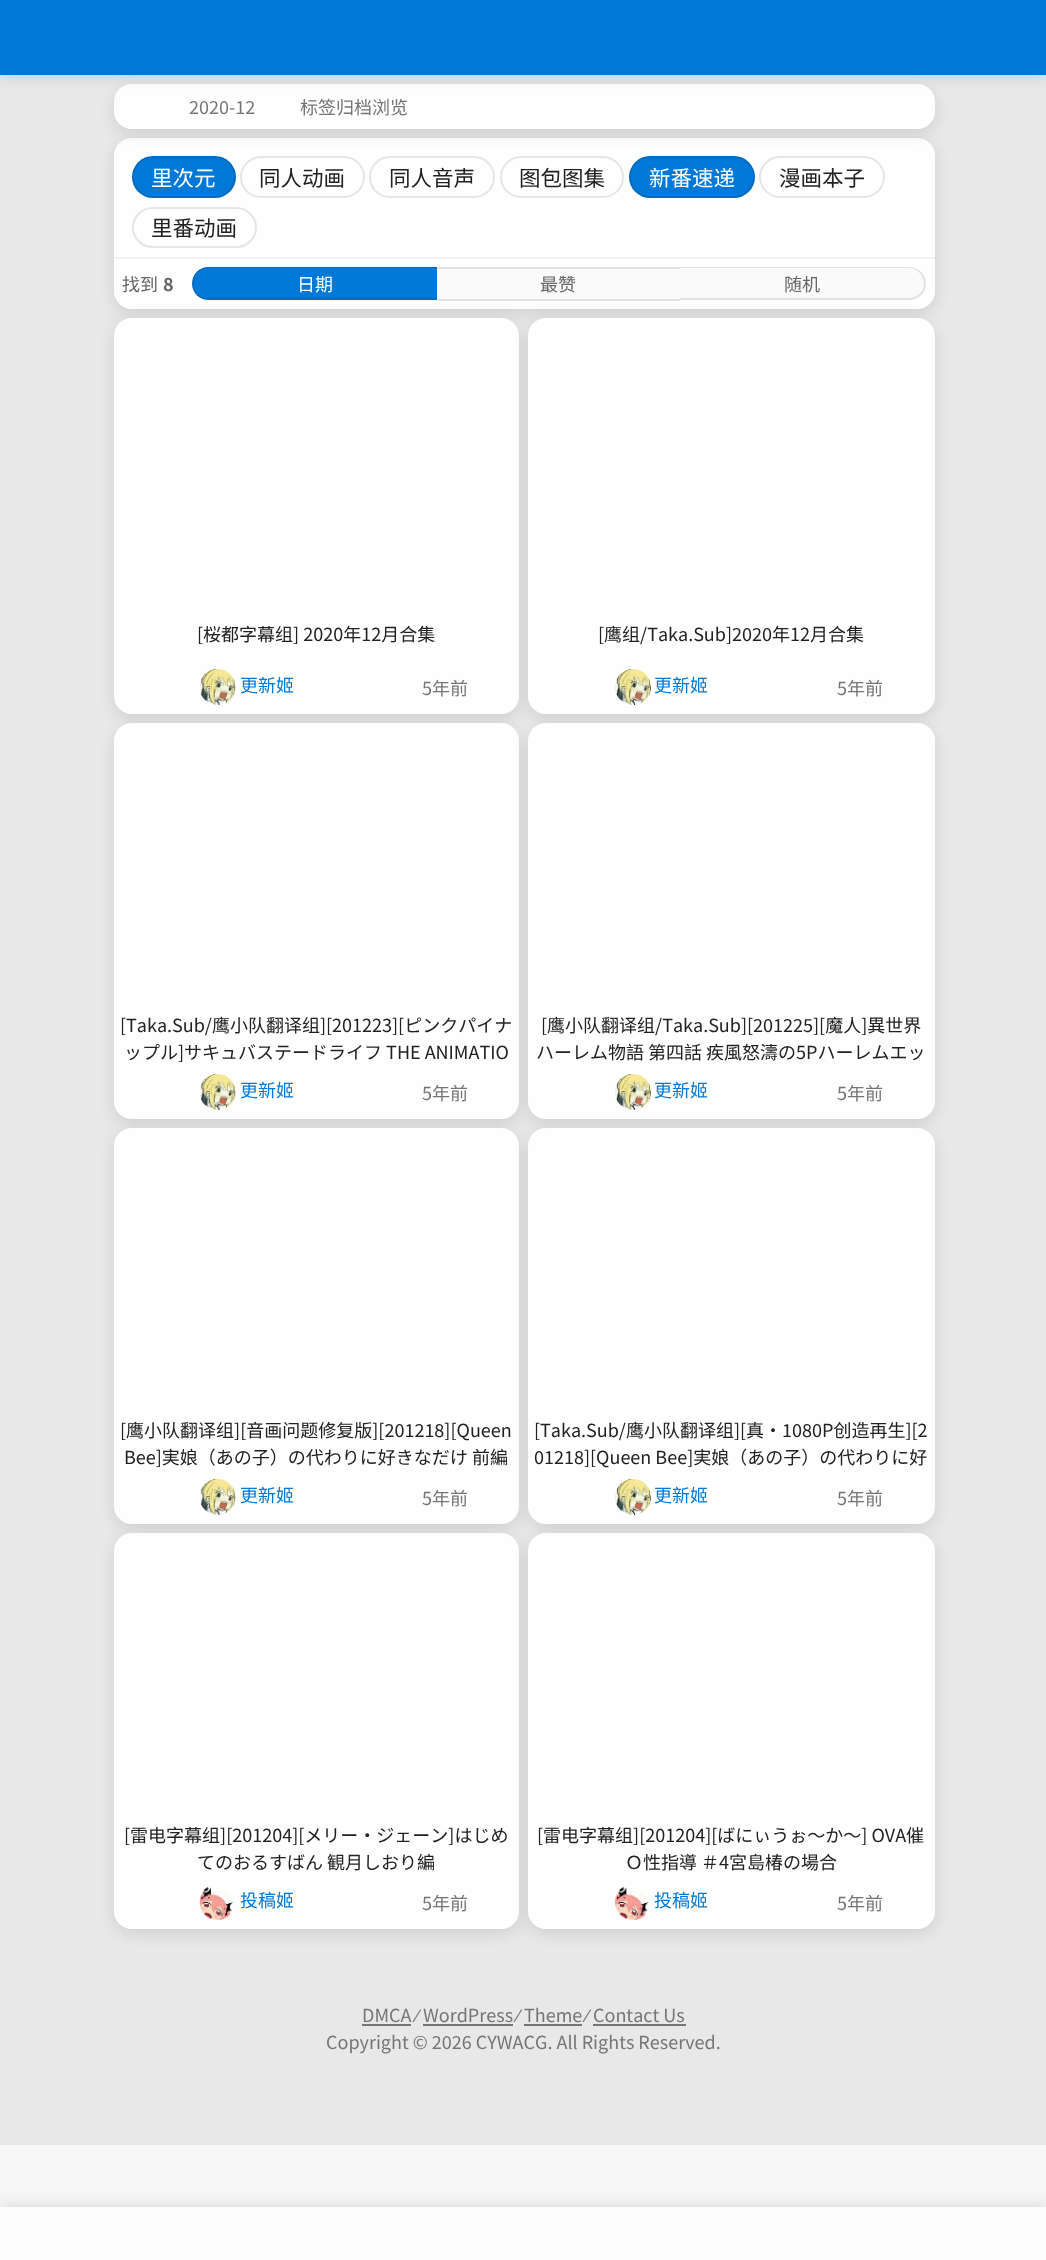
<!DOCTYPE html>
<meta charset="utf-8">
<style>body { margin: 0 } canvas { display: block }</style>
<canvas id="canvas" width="1046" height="2260"></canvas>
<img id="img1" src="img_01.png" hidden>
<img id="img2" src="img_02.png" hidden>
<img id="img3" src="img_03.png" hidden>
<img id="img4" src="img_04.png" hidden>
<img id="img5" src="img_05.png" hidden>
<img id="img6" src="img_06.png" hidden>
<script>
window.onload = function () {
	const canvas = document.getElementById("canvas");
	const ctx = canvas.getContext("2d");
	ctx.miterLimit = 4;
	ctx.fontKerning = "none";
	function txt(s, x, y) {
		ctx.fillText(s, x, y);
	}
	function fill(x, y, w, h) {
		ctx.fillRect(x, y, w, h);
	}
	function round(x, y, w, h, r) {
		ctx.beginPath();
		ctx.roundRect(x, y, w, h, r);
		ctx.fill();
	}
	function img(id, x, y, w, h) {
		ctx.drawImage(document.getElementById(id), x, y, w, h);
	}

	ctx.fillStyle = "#F6F6F6";
	fill(0, 0, 1046, 2260);
	ctx.fillStyle = "#E8E8E8";
	fill(0, 75, 1046, 2070);
	ctx.save();
	ctx.beginPath();
	ctx.moveTo(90, 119);
	ctx.lineTo(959, 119);
	ctx.lineTo(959, 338);
	ctx.lineTo(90, 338);
	ctx.closePath();
	ctx.moveTo(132, 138);
	ctx.lineTo(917, 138);
	ctx.bezierCurveTo(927, 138, 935, 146, 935, 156);
	ctx.lineTo(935, 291);
	ctx.bezierCurveTo(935, 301, 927, 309, 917, 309);
	ctx.lineTo(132, 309);
	ctx.bezierCurveTo(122, 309, 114, 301, 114, 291);
	ctx.lineTo(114, 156);
	ctx.bezierCurveTo(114, 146, 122, 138, 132, 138);
	ctx.closePath();
	ctx.clip("evenodd");
	ctx.fillStyle = "rgba(0, 0, 0, 0.1)";
	ctx.filter = "blur(7.5px)";
	ctx.beginPath();
	ctx.roundRect(114, 143, 821, 171, 18);
	ctx.fill();
	ctx.filter = "none";
	ctx.restore();
	ctx.fillStyle = "rgba(255, 255, 255, 0.95)";
	round(114, 138, 821, 171, 18);
	ctx.fillStyle = "#0078D7";
	round(132, 156, 104, 42, 21);
	ctx.beginPath();
	ctx.roundRect(133, 157, 102, 40, 20);
	ctx.strokeStyle = "rgba(0, 0, 0, 0.1)";
	ctx.lineWidth = 2;
	ctx.stroke();
	ctx.beginPath();
	ctx.roundRect(241, 157, 123, 40, 20);
	ctx.strokeStyle = "#E5E5E5";
	ctx.stroke();
	ctx.beginPath();
	ctx.roundRect(370, 157, 124, 40, 20);
	ctx.stroke();
	ctx.beginPath();
	ctx.roundRect(501, 157, 122, 40, 20);
	ctx.stroke();
	round(629, 156, 126, 42, 21);
	ctx.beginPath();
	ctx.roundRect(630, 157, 124, 40, 20);
	ctx.strokeStyle = "rgba(0, 0, 0, 0.1)";
	ctx.stroke();
	ctx.beginPath();
	ctx.roundRect(760, 157, 124, 40, 20);
	ctx.strokeStyle = "#E5E5E5";
	ctx.stroke();
	ctx.save();
	ctx.beginPath();
	ctx.moveTo(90, 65);
	ctx.lineTo(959, 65);
	ctx.lineTo(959, 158);
	ctx.lineTo(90, 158);
	ctx.closePath();
	ctx.moveTo(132, 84);
	ctx.lineTo(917, 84);
	ctx.bezierCurveTo(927, 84, 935, 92, 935, 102);
	ctx.lineTo(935, 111);
	ctx.bezierCurveTo(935, 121, 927, 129, 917, 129);
	ctx.lineTo(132, 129);
	ctx.bezierCurveTo(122, 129, 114, 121, 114, 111);
	ctx.lineTo(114, 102);
	ctx.bezierCurveTo(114, 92, 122, 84, 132, 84);
	ctx.closePath();
	ctx.clip("evenodd");
	ctx.fillStyle = "rgba(0, 0, 0, 0.1)";
	ctx.filter = "blur(7.5px)";
	ctx.beginPath();
	ctx.roundRect(114, 89, 821, 45, 18);
	ctx.fill();
	ctx.filter = "none";
	ctx.restore();
	ctx.fillStyle = "rgba(255, 255, 255, 0.95)";
	round(114, 84, 821, 45, 18);
	ctx.fillStyle = "rgba(0, 0, 0, 0.15)";
	ctx.filter = "blur(7.5px)";
	ctx.beginPath();
	ctx.rect(0, 0, 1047, 75);
	ctx.fill();
	ctx.filter = "none";
	ctx.fillStyle = "#0078D7";
	fill(0, 0, 1046, 75);
	ctx.fillStyle = "rgba(0, 0, 0, 0.05)";
	fill(114, 257, 821, 2);
	ctx.beginPath();
	ctx.roundRect(133, 208, 123, 39, 19.5);
	ctx.stroke();
	ctx.fillStyle = "#0078D7";
	ctx.beginPath();
	ctx.roundRect(192, 267, 245, 33, [16.5, 0, 0, 16.5]);
	ctx.fill();
	ctx.fillStyle = "rgba(0, 0, 0, 0.1)";
	ctx.beginPath();
	ctx.moveTo(208, 267);
	ctx.lineTo(436, 267);
	ctx.lineTo(436, 300);
	ctx.lineTo(208, 300);
	ctx.bezierCurveTo(199, 300, 192, 293, 192, 284);
	ctx.bezierCurveTo(192, 274, 199, 267, 208, 267);
	ctx.closePath();
	ctx.moveTo(208, 268);
	ctx.lineTo(436, 268);
	ctx.lineTo(436, 298);
	ctx.lineTo(208, 298);
	ctx.bezierCurveTo(200, 298, 194, 292, 194, 284);
	ctx.bezierCurveTo(194, 275, 200, 268, 208, 268);
	ctx.closePath();
	ctx.fill("evenodd");
	ctx.fillStyle = "#FAFAFA";
	fill(437, 269, 243, 31);
	ctx.fillStyle = "#E1E1E1";
	fill(437, 267, 243, 2);
	ctx.fillStyle = "rgba(0, 0, 0, 0.1)";
	fill(437, 299, 243, 2);
	ctx.fillStyle = "#FAFAFA";
	ctx.beginPath();
	ctx.roundRect(680, 267, 246, 33, [0, 16.5, 16.5, 0]);
	ctx.fill();
	ctx.fillStyle = "#E1E1E1";
	ctx.beginPath();
	ctx.moveTo(680, 267);
	ctx.lineTo(909, 267);
	ctx.bezierCurveTo(918, 267, 926, 274, 926, 284);
	ctx.bezierCurveTo(926, 293, 918, 300, 909, 300);
	ctx.lineTo(680, 300);
	ctx.closePath();
	ctx.moveTo(680, 268);
	ctx.lineTo(909, 268);
	ctx.bezierCurveTo(917, 268, 924, 275, 924, 284);
	ctx.bezierCurveTo(924, 292, 917, 298, 909, 298);
	ctx.lineTo(680, 298);
	ctx.closePath();
	ctx.fill("evenodd");
	ctx.save();
	ctx.beginPath();
	ctx.moveTo(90, 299);
	ctx.lineTo(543, 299);
	ctx.lineTo(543, 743);
	ctx.lineTo(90, 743);
	ctx.closePath();
	ctx.moveTo(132, 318);
	ctx.lineTo(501, 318);
	ctx.bezierCurveTo(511, 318, 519, 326, 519, 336);
	ctx.lineTo(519, 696);
	ctx.bezierCurveTo(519, 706, 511, 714, 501, 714);
	ctx.lineTo(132, 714);
	ctx.bezierCurveTo(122, 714, 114, 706, 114, 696);
	ctx.lineTo(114, 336);
	ctx.bezierCurveTo(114, 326, 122, 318, 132, 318);
	ctx.closePath();
	ctx.clip("evenodd");
	ctx.fillStyle = "rgba(0, 0, 0, 0.1)";
	ctx.filter = "blur(7.5px)";
	ctx.beginPath();
	ctx.roundRect(114, 323, 405, 396, 18);
	ctx.fill();
	ctx.filter = "none";
	ctx.restore();
	ctx.fillStyle = "rgba(255, 255, 255, 0.95)";
	round(114, 318, 405, 396, 18);
	img("img1", 200, 669, 36, 36);
	ctx.save();
	ctx.beginPath();
	ctx.moveTo(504, 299);
	ctx.lineTo(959, 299);
	ctx.lineTo(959, 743);
	ctx.lineTo(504, 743);
	ctx.closePath();
	ctx.moveTo(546, 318);
	ctx.lineTo(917, 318);
	ctx.bezierCurveTo(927, 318, 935, 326, 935, 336);
	ctx.lineTo(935, 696);
	ctx.bezierCurveTo(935, 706, 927, 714, 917, 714);
	ctx.lineTo(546, 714);
	ctx.bezierCurveTo(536, 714, 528, 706, 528, 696);
	ctx.lineTo(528, 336);
	ctx.bezierCurveTo(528, 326, 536, 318, 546, 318);
	ctx.closePath();
	ctx.clip("evenodd");
	ctx.fillStyle = "rgba(0, 0, 0, 0.1)";
	ctx.filter = "blur(7.5px)";
	ctx.beginPath();
	ctx.roundRect(528, 323, 407, 396, 18);
	ctx.fill();
	ctx.filter = "none";
	ctx.restore();
	round(528, 318, 407, 396, 18);
	img("img2", 615, 669, 36, 36);
	ctx.save();
	ctx.beginPath();
	ctx.moveTo(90, 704);
	ctx.lineTo(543, 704);
	ctx.lineTo(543, 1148);
	ctx.lineTo(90, 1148);
	ctx.closePath();
	ctx.moveTo(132, 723);
	ctx.lineTo(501, 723);
	ctx.bezierCurveTo(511, 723, 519, 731, 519, 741);
	ctx.lineTo(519, 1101);
	ctx.bezierCurveTo(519, 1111, 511, 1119, 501, 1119);
	ctx.lineTo(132, 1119);
	ctx.bezierCurveTo(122, 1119, 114, 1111, 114, 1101);
	ctx.lineTo(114, 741);
	ctx.bezierCurveTo(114, 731, 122, 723, 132, 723);
	ctx.closePath();
	ctx.clip("evenodd");
	ctx.fillStyle = "rgba(0, 0, 0, 0.1)";
	ctx.filter = "blur(7.5px)";
	ctx.beginPath();
	ctx.roundRect(114, 728, 405, 396, 18);
	ctx.fill();
	ctx.filter = "none";
	ctx.restore();
	round(114, 723, 405, 396, 18);
	img("img3", 200, 1074, 36, 36);
	ctx.save();
	ctx.beginPath();
	ctx.moveTo(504, 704);
	ctx.lineTo(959, 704);
	ctx.lineTo(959, 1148);
	ctx.lineTo(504, 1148);
	ctx.closePath();
	ctx.moveTo(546, 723);
	ctx.lineTo(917, 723);
	ctx.bezierCurveTo(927, 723, 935, 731, 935, 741);
	ctx.lineTo(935, 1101);
	ctx.bezierCurveTo(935, 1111, 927, 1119, 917, 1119);
	ctx.lineTo(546, 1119);
	ctx.bezierCurveTo(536, 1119, 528, 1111, 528, 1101);
	ctx.lineTo(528, 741);
	ctx.bezierCurveTo(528, 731, 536, 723, 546, 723);
	ctx.closePath();
	ctx.clip("evenodd");
	ctx.fillStyle = "rgba(0, 0, 0, 0.1)";
	ctx.filter = "blur(7.5px)";
	ctx.beginPath();
	ctx.roundRect(528, 728, 407, 396, 18);
	ctx.fill();
	ctx.filter = "none";
	ctx.restore();
	round(528, 723, 407, 396, 18);
	img("img4", 615, 1074, 36, 36);
	ctx.save();
	ctx.beginPath();
	ctx.moveTo(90, 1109);
	ctx.lineTo(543, 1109);
	ctx.lineTo(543, 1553);
	ctx.lineTo(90, 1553);
	ctx.closePath();
	ctx.moveTo(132, 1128);
	ctx.lineTo(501, 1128);
	ctx.bezierCurveTo(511, 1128, 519, 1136, 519, 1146);
	ctx.lineTo(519, 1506);
	ctx.bezierCurveTo(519, 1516, 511, 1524, 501, 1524);
	ctx.lineTo(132, 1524);
	ctx.bezierCurveTo(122, 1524, 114, 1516, 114, 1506);
	ctx.lineTo(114, 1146);
	ctx.bezierCurveTo(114, 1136, 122, 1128, 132, 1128);
	ctx.closePath();
	ctx.clip("evenodd");
	ctx.fillStyle = "rgba(0, 0, 0, 0.1)";
	ctx.filter = "blur(7.5px)";
	ctx.beginPath();
	ctx.roundRect(114, 1133, 405, 396, 18);
	ctx.fill();
	ctx.filter = "none";
	ctx.restore();
	round(114, 1128, 405, 396, 18);
	img("img1", 200, 1479, 36, 36);
	ctx.save();
	ctx.beginPath();
	ctx.moveTo(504, 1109);
	ctx.lineTo(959, 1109);
	ctx.lineTo(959, 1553);
	ctx.lineTo(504, 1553);
	ctx.closePath();
	ctx.moveTo(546, 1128);
	ctx.lineTo(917, 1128);
	ctx.bezierCurveTo(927, 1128, 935, 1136, 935, 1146);
	ctx.lineTo(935, 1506);
	ctx.bezierCurveTo(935, 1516, 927, 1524, 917, 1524);
	ctx.lineTo(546, 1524);
	ctx.bezierCurveTo(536, 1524, 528, 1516, 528, 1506);
	ctx.lineTo(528, 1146);
	ctx.bezierCurveTo(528, 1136, 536, 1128, 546, 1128);
	ctx.closePath();
	ctx.clip("evenodd");
	ctx.fillStyle = "rgba(0, 0, 0, 0.1)";
	ctx.filter = "blur(7.5px)";
	ctx.beginPath();
	ctx.roundRect(528, 1133, 407, 396, 18);
	ctx.fill();
	ctx.filter = "none";
	ctx.restore();
	round(528, 1128, 407, 396, 18);
	img("img2", 615, 1479, 36, 36);
	ctx.save();
	ctx.beginPath();
	ctx.moveTo(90, 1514);
	ctx.lineTo(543, 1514);
	ctx.lineTo(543, 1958);
	ctx.lineTo(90, 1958);
	ctx.closePath();
	ctx.moveTo(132, 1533);
	ctx.lineTo(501, 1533);
	ctx.bezierCurveTo(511, 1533, 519, 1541, 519, 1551);
	ctx.lineTo(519, 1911);
	ctx.bezierCurveTo(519, 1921, 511, 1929, 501, 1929);
	ctx.lineTo(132, 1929);
	ctx.bezierCurveTo(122, 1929, 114, 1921, 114, 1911);
	ctx.lineTo(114, 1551);
	ctx.bezierCurveTo(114, 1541, 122, 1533, 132, 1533);
	ctx.closePath();
	ctx.clip("evenodd");
	ctx.fillStyle = "rgba(0, 0, 0, 0.1)";
	ctx.filter = "blur(7.5px)";
	ctx.beginPath();
	ctx.roundRect(114, 1538, 405, 396, 18);
	ctx.fill();
	ctx.filter = "none";
	ctx.restore();
	round(114, 1533, 405, 396, 18);
	img("img5", 199, 1887, 34, 33);
	ctx.save();
	ctx.beginPath();
	ctx.moveTo(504, 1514);
	ctx.lineTo(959, 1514);
	ctx.lineTo(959, 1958);
	ctx.lineTo(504, 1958);
	ctx.closePath();
	ctx.moveTo(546, 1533);
	ctx.lineTo(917, 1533);
	ctx.bezierCurveTo(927, 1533, 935, 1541, 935, 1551);
	ctx.lineTo(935, 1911);
	ctx.bezierCurveTo(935, 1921, 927, 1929, 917, 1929);
	ctx.lineTo(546, 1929);
	ctx.bezierCurveTo(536, 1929, 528, 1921, 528, 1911);
	ctx.lineTo(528, 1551);
	ctx.bezierCurveTo(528, 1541, 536, 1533, 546, 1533);
	ctx.closePath();
	ctx.clip("evenodd");
	ctx.fillStyle = "rgba(0, 0, 0, 0.1)";
	ctx.filter = "blur(7.5px)";
	ctx.beginPath();
	ctx.roundRect(528, 1538, 407, 396, 18);
	ctx.fill();
	ctx.filter = "none";
	ctx.restore();
	round(528, 1533, 407, 396, 18);
	img("img6", 615, 1887, 34, 33);
	ctx.fillStyle = "#757575";
	fill(362, 2024, 49, 2);
	fill(423, 2024, 90, 2);
	fill(524, 2024, 58, 2);
	fill(593, 2024, 93, 2);
	ctx.fillStyle = "rgba(0, 0, 0, 0.15)";
	ctx.filter = "blur(7.5px)";
	ctx.beginPath();
	ctx.rect(0, 2207, 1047, 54);
	ctx.fill();
	ctx.filter = "none";
	ctx.fillStyle = "#FDFDFD";
	fill(0, 2207, 1046, 53);
	ctx.font = "18px Noto Sans CJK SC";
	ctx.fillStyle = "#757575";
	txt("2020-12", 189, 114);
	txt("标签归档浏览", 300, 114);
	ctx.font = "21.5px Noto Sans CJK SC";
	ctx.fillStyle = "#FFFFFF";
	txt("里次元", 151, 186);
	ctx.fillStyle = "#212121";
	txt("同人动画", 259, 186);
	txt("同人音声", 389, 186);
	txt("图包图集", 519, 186);
	ctx.fillStyle = "#FFFFFF";
	txt("新番速递", 649, 186);
	ctx.fillStyle = "#212121";
	txt("漫画本子", 779, 186);
	txt("里番动画", 151, 236);
	ctx.font = "18px Noto Sans CJK SC";
	ctx.fillStyle = "#666666";
	txt("找到", 122, 291);
	ctx.font = "bold 18px Noto Sans CJK SC";
	txt("8", 163, 291);
	ctx.font = "18px Noto Sans CJK SC";
	ctx.fillStyle = "#FFFFFF";
	txt("日期", 297, 291);
	ctx.fillStyle = "#666666";
	txt("最赞", 540, 291);
	txt("随机", 784, 291);
	ctx.fillStyle = "#212121";
	txt("[桜都字幕组] 2020年12月合集", 197, 641);
	ctx.fillStyle = "#0078D7";
	txt("更新姬", 240, 692);
	ctx.fillStyle = "#757575";
	txt("5年前", 422, 695);
	ctx.fillStyle = "#212121";
	txt("[鹰组/Taka.Sub]2020年12月合集", 598, 641);
	ctx.fillStyle = "#0078D7";
	txt("更新姬", 654, 692);
	ctx.fillStyle = "#757575";
	txt("5年前", 837, 695);
	ctx.fillStyle = "#212121";
	txt("[Taka.Sub/鹰小队翻译组][201223][ピンクパイナ", 120, 1032);
	txt("ップル]サキュバステードライフ THE ANIMATIO", 124, 1059);
	ctx.fillStyle = "#0078D7";
	txt("更新姬", 240, 1097);
	ctx.fillStyle = "#757575";
	txt("5年前", 422, 1100);
	ctx.fillStyle = "#212121";
	txt("[鹰小队翻译组/Taka.Sub][201225][魔人]異世界", 541, 1032);
	txt("ハーレム物語 第四話 疾風怒濤の5Pハーレムエッ", 536, 1059);
	ctx.fillStyle = "#0078D7";
	txt("更新姬", 654, 1097);
	ctx.fillStyle = "#757575";
	txt("5年前", 837, 1100);
	ctx.fillStyle = "#212121";
	txt("[鹰小队翻译组][音画问题修复版][201218][Queen", 120, 1437);
	txt("Bee]実娘（あの子）の代わりに好きなだけ 前編", 124, 1464);
	ctx.fillStyle = "#0078D7";
	txt("更新姬", 240, 1502);
	ctx.fillStyle = "#757575";
	txt("5年前", 422, 1505);
	ctx.fillStyle = "#212121";
	txt("[Taka.Sub/鹰小队翻译组][真·1080P创造再生][2", 534, 1437);
	txt("01218][Queen Bee]実娘（あの子）の代わりに好", 534, 1464);
	ctx.fillStyle = "#0078D7";
	txt("更新姬", 654, 1502);
	ctx.fillStyle = "#757575";
	txt("5年前", 837, 1505);
	ctx.fillStyle = "#212121";
	txt("[雷电字幕组][201204][メリー・ジェーン]はじめ", 124, 1842);
	txt("てのおるすばん 観月しおり編", 197, 1869);
	ctx.fillStyle = "#0078D7";
	txt("投稿姬", 240, 1907);
	ctx.fillStyle = "#757575";
	txt("5年前", 422, 1910);
	ctx.fillStyle = "#212121";
	txt("[雷电字幕组][201204][ばにぃうぉ～か～] OVA催", 537, 1842);
	txt("Ｏ性指導 ＃4宮島椿の場合", 625, 1869);
	ctx.fillStyle = "#0078D7";
	txt("投稿姬", 654, 1907);
	ctx.fillStyle = "#757575";
	txt("5年前", 837, 1910);
	txt("DMCA", 362, 2022);
	ctx.font = "18px Liberation Sans";
	txt("⁄", 416, 2022);
	ctx.font = "18px Noto Sans CJK SC";
	txt("WordPress", 423, 2022);
	ctx.font = "18px Liberation Sans";
	txt("⁄", 517, 2022);
	ctx.font = "18px Noto Sans CJK SC";
	txt("Theme", 524, 2022);
	ctx.font = "18px Liberation Sans";
	txt("⁄", 586, 2022);
	ctx.font = "18px Noto Sans CJK SC";
	txt("Contact Us", 593, 2022);
	txt("Copyright © 2026 CYWACG. All Rights Reserved.", 326, 2049);
};
</script>
